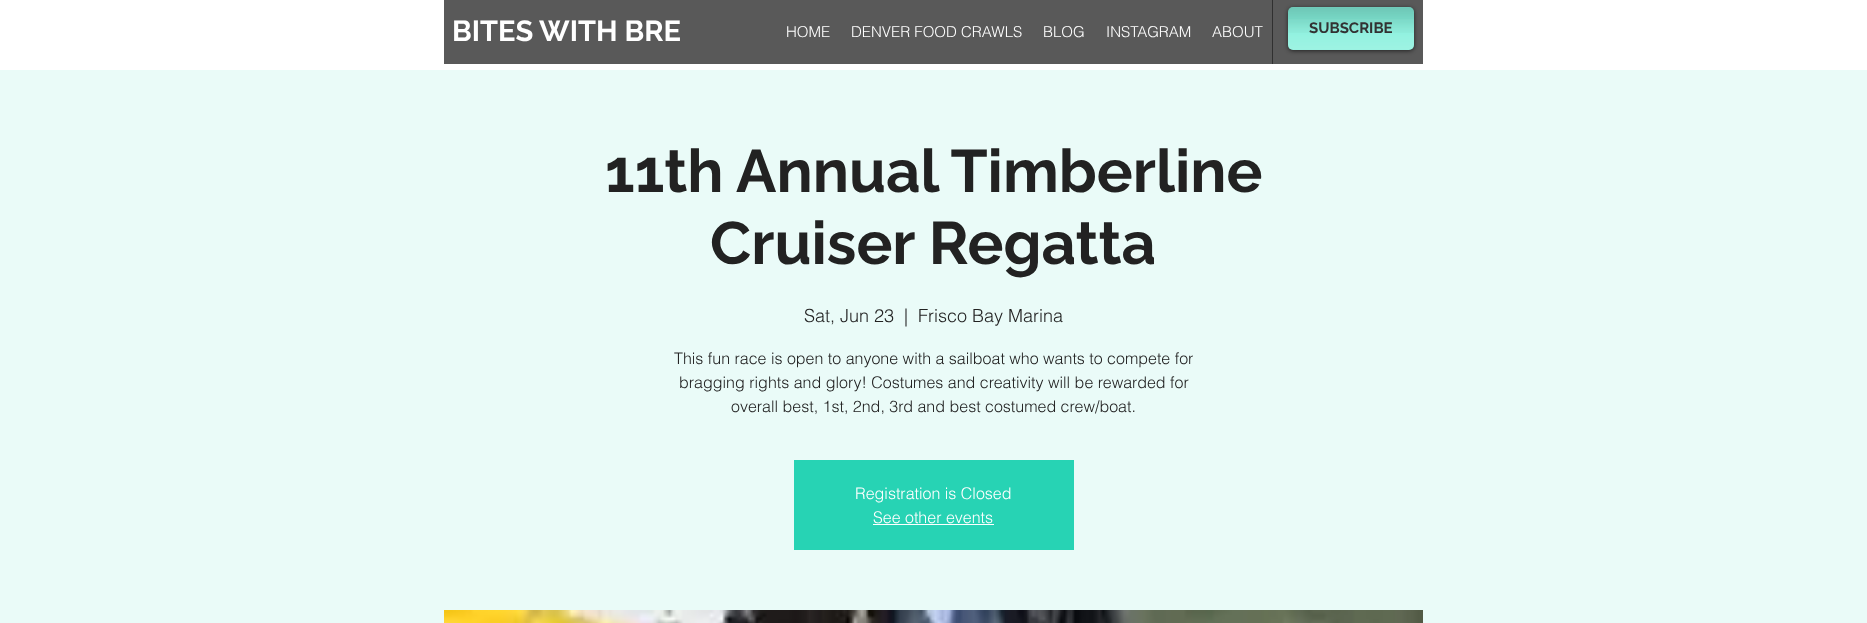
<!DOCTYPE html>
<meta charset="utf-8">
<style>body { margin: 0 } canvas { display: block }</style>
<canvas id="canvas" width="1867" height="623"></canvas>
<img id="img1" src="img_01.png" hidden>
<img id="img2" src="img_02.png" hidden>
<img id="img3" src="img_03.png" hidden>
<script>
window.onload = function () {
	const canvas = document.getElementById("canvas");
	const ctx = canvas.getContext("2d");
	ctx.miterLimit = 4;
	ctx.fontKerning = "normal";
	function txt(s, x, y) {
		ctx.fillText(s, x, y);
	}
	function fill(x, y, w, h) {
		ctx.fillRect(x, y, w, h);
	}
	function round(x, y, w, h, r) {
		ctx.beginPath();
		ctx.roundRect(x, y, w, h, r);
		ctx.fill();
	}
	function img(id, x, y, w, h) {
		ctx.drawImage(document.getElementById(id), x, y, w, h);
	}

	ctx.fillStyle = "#FFFFFF";
	fill(0, 0, 1867, 623);
	ctx.fillStyle = "#595959";
	fill(1273, 0, 150, 64);
	fill(444, 0, 828, 64);
	ctx.fillStyle = "#303030";
	fill(1272, 0, 1, 64);
	ctx.fillStyle = "rgba(0, 0, 0, 0.6)";
	ctx.filter = "blur(2px)";
	ctx.beginPath();
	ctx.roundRect(1288, 8, 126, 43, 5);
	ctx.fill();
	ctx.filter = "none";
	ctx.fillStyle = "#85F0DC";
	round(1288, 7, 126, 43, 5);
	img("img1", 1288, 7, 126, 26);
	img("img2", 1288, 19, 126, 31);
	ctx.fillStyle = "#EAFBF8";
	fill(0, 70, 1867, 553);
	ctx.fillStyle = "#27D3B4";
	fill(794, 460, 280, 90);
	ctx.fillStyle = "#FFFFFF";
	fill(873, 524, 121, 1);
	img("img3", 444, 610, 979, 13);
	ctx.font = "bold 29px Raleway";
	txt("BITES WITH BRE", 452, 41);
	ctx.font = "300 15px helvetica";
	txt("HOME", 786, 37);
	txt("DENVER FOOD CRAWLS", 851, 37);
	txt("BLOG", 1043, 37);
	txt("INSTAGRAM", 1106, 37);
	txt("ABOUT", 1212, 37);
	ctx.font = "bold 15px Raleway";
	ctx.fillStyle = "#323232";
	txt("SUBSCRIBE", 1309, 33);
	ctx.font = "bold 60px Raleway";
	ctx.fillStyle = "#222222";
	txt("11th Annual Timberline", 605, 192);
	txt("Cruiser Regatta", 710, 264);
	ctx.font = "300 18px helvetica";
	txt("Sat, Jun 23", 804, 322);
	txt("|", 904, 322);
	txt("Frisco Bay Marina", 918, 322);
	ctx.font = "300 16px helvetica";
	txt("This fun race is open to anyone with a sailboat who wants to compete for", 674, 364);
	txt("bragging rights and glory! Costumes and creativity will be rewarded for", 679, 388);
	txt("overall best, 1st, 2nd, 3rd and best costumed crew/boat.", 731, 412);
	ctx.fillStyle = "#FFFFFF";
	txt("Registration is Closed", 855, 499);
	txt("See other events", 873, 523);
};
</script>
